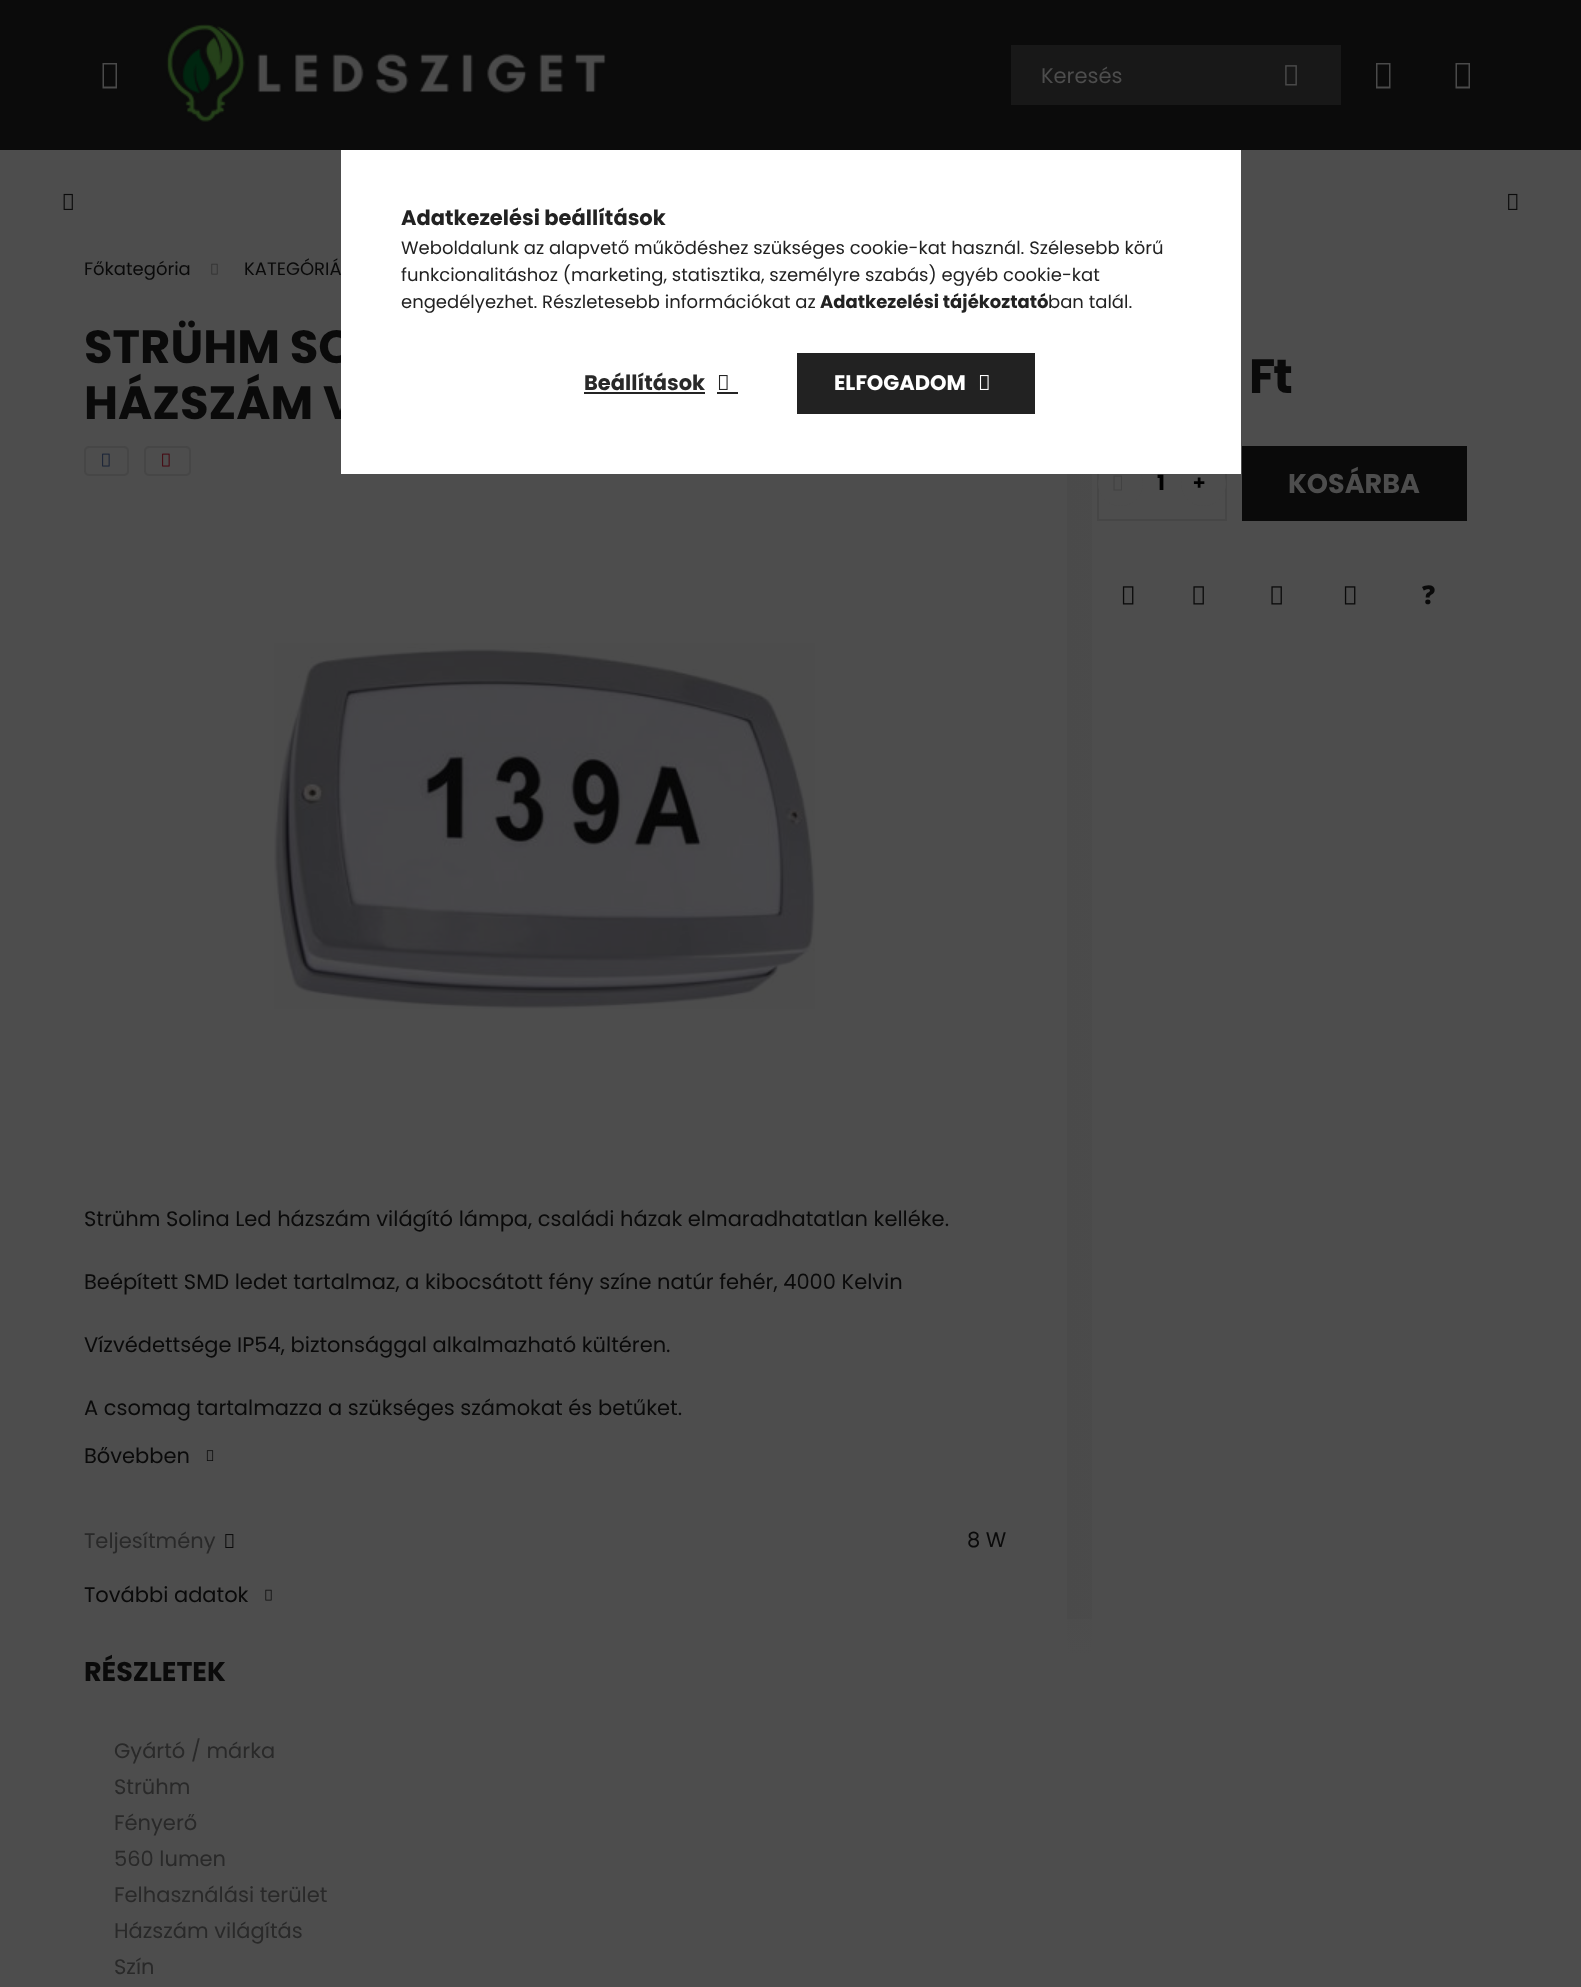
<!DOCTYPE html>
<meta charset="utf-8">
<style>body { margin: 0 } canvas { display: block }</style>
<canvas id="canvas" width="1581" height="1987"></canvas>
<img id="img1" src="img_01.png" hidden>
<img id="img2" src="img_02.png" hidden>
<img id="img3" src="img_03.png" hidden>
<img id="img4" src="img_04.png" hidden>
<img id="img5" src="img_05.png" hidden>
<img id="img6" src="img_06.png" hidden>
<img id="img7" src="img_07.png" hidden>
<img id="img8" src="img_08.png" hidden>
<img id="img9" src="img_09.png" hidden>
<img id="img10" src="img_10.png" hidden>
<img id="img11" src="img_11.png" hidden>
<img id="img12" src="img_12.png" hidden>
<img id="img13" src="img_13.png" hidden>
<img id="img14" src="img_14.png" hidden>
<img id="img15" src="img_15.png" hidden>
<img id="img16" src="img_16.png" hidden>
<img id="img17" src="img_17.png" hidden>
<script>
window.onload = function () {
	const canvas = document.getElementById("canvas");
	const ctx = canvas.getContext("2d");
	ctx.miterLimit = 4;
	ctx.fontKerning = "normal";
	function txt(s, x, y) {
		ctx.fillText(s, x, y);
	}
	function fill(x, y, w, h) {
		ctx.fillRect(x, y, w, h);
	}
	function img(id, x, y, w, h) {
		ctx.drawImage(document.getElementById(id), x, y, w, h);
	}
	let gradient;

	ctx.fillStyle = "#4D4D4D";
	fill(0, 0, 1581, 1987);
	ctx.fillStyle = "#0B0B0B";
	fill(0, 0, 1581, 150);
	ctx.fillStyle = "#4A4A4A";
	ctx.beginPath();
	ctx.moveTo(102.5, 88.5);
	ctx.lineTo(102.5, 63);
	ctx.lineTo(117, 63);
	ctx.lineTo(117, 88.5);
	ctx.closePath();
	ctx.moveTo(104, 86.5);
	ctx.lineTo(115.5, 86.5);
	ctx.lineTo(115.5, 64.5);
	ctx.lineTo(104, 64.5);
	ctx.closePath();
	ctx.fill();
	img("img1", 166, 24, 440, 98);
	ctx.fillStyle = "#181818";
	fill(1011, 45, 330, 60);
	img("img2", 1285, 65, 12, 21);
	ctx.fillStyle = "#4A4A4A";
	ctx.beginPath();
	ctx.moveTo(1376, 88.5);
	ctx.lineTo(1376, 63);
	ctx.lineTo(1390.5, 63);
	ctx.lineTo(1390.5, 88.5);
	ctx.closePath();
	ctx.moveTo(1377.5, 86.5);
	ctx.lineTo(1389, 86.5);
	ctx.lineTo(1389, 64.5);
	ctx.lineTo(1377.5, 64.5);
	ctx.closePath();
	ctx.fill();
	ctx.beginPath();
	ctx.moveTo(1455.5, 88.5);
	ctx.lineTo(1455.5, 63);
	ctx.lineTo(1470, 63);
	ctx.lineTo(1470, 88.5);
	ctx.closePath();
	ctx.moveTo(1457, 86.5);
	ctx.lineTo(1468.5, 86.5);
	ctx.lineTo(1468.5, 64.5);
	ctx.lineTo(1457, 64.5);
	ctx.closePath();
	ctx.fill();
	img("img3", 63, 193, 10, 17);
	img("img4", 1508, 193, 10, 17);
	img("img5", 211, 263, 7, 12);
	ctx.beginPath();
	ctx.roundRect(85, 447, 43, 28, 4);
	ctx.strokeStyle = "#464646";
	ctx.lineWidth = 2;
	ctx.stroke();
	img("img6", 102, 453, 8, 14);
	ctx.beginPath();
	ctx.roundRect(145, 447, 45, 28, 4);
	ctx.stroke();
	img("img7", 162, 453, 8, 14);
	img("img8", 274, 643, 541, 366);
	img("img9", 206, 1450, 8, 11);
	img("img10", 225, 1534, 9, 14);
	img("img11", 265, 1589, 7, 12);
	gradient = ctx.createLinearGradient(1067, 903, 1497, 903);
	gradient.addColorStop(0, "#4A4A4A");
	gradient.addColorStop(0.35, "#4D4D4D");
	gradient.addColorStop(1, "#4D4D4D");
	ctx.fillStyle = gradient;
	fill(1067, 150, 25, 1505);
	ctx.strokeRect(1098, 447, 128, 73);
	ctx.fillStyle = "#4D4D4D";
	ctx.beginPath();
	ctx.arc(1120.5, 483.5, 22.5, 0, Math.PI * 2);
	ctx.fill();
	img("img12", 1113, 475, 9, 16);
	ctx.beginPath();
	ctx.arc(1203.5, 483.5, 22.5, 0, Math.PI * 2);
	ctx.fill();
	gradient = ctx.createLinearGradient(792, 483, 1467, 483);
	gradient.addColorStop(0, "#0B0B0B");
	gradient.addColorStop(0.33, "#0B0B0B");
	gradient.addColorStop(0.67, "#0A0A0A");
	gradient.addColorStop(1, "#0A0A0A");
	ctx.fillStyle = gradient;
	fill(1242, 446, 225, 75);
	img("img13", 1122, 586, 12, 19);
	img("img14", 1193, 586, 11, 19);
	img("img14", 1271, 586, 11, 19);
	img("img15", 1344, 586, 12, 19);
	gradient = ctx.createLinearGradient(1282, 1656, 1282, 1536);
	gradient.addColorStop(0, "#4D4D4D");
	gradient.addColorStop(1, "rgba(77, 77, 77, 0)");
	ctx.fillStyle = gradient;
	fill(1067, 1619, 25, 36);
	ctx.font = "21px Poppins";
	ctx.fillStyle = "#4D4D4D";
	txt("Keresés", 1041, 83);
	ctx.font = "18px Poppins";
	ctx.fillStyle = "#0A0A0A";
	txt("Főkategória", 84, 275);
	txt("KATEGÓRIÁ", 244, 275);
	ctx.font = "bold 46.5px Poppins";
	txt("STRÜHM SO", 84, 363);
	txt("HÁZSZÁM V", 84, 419);
	ctx.font = "21px Poppins";
	txt("Strühm Solina Led házszám világító lámpa, családi házak elmaradhatatlan kelléke.", 84, 1226);
	txt("Beépített SMD ledet tartalmaz, a kibocsátott fény színe natúr fehér, 4000 Kelvin", 84, 1289);
	txt("Vízvédettsége IP54, biztonsággal alkalmazható kültéren.", 84, 1352);
	txt("A csomag tartalmazza a szükséges számokat és betűket.", 84, 1415);
	txt("Bővebben", 84, 1463);
	ctx.fillStyle = "#292929";
	txt("Teljesítmény", 84, 1548);
	ctx.fillStyle = "#0A0A0A";
	txt("8 W", 967, 1547);
	txt("További adatok", 84, 1602);
	ctx.letterSpacing = "-2px";
	ctx.font = "bold 48px Poppins";
	txt("Ft", 1249, 393);
	ctx.letterSpacing = "0px";
	ctx.font = "bold 21px Poppins";
	ctx.fillStyle = "#000000";
	txt("1", 1157, 490);
	ctx.font = "900 21px Noto Sans";
	txt("+", 1193, 490);
	ctx.font = "bold 27px Poppins";
	ctx.fillStyle = "#4D4D4D";
	txt("KOSÁRBA", 1288, 493);
	ctx.font = "900 26px Noto Sans";
	ctx.fillStyle = "#0A0A0A";
	txt("?", 1422, 604);
	ctx.font = "bold 27px Poppins";
	txt("RÉSZLETEK", 84, 1681);
	ctx.font = "21px Poppins";
	ctx.fillStyle = "#292929";
	txt("Gyártó / márka", 114, 1758);
	txt("Strühm", 114, 1794);
	txt("Fényerő", 114, 1830);
	txt("560 lumen", 114, 1866);
	txt("Felhasználási terület", 114, 1902);
	txt("Házszám világítás", 114, 1938);
	txt("Szín", 114, 1974);
	ctx.fillStyle = "#FFFFFF";
	fill(341, 150, 900, 324);
	ctx.font = "bold 21px Poppins";
	ctx.fillStyle = "#222222";
	txt("Adatkezelési beállítások", 401, 225);
	ctx.font = "18px Poppins";
	txt("Weboldalunk az alapvető működéshez szükséges cookie-kat használ. Szélesebb körű", 401, 254);
	txt("funkcionalitáshoz (marketing, statisztika, személyre szabás) egyéb cookie-kat", 401, 281);
	txt("engedélyezhet. Részletesebb információkat az", 401, 308);
	ctx.font = "bold 18px Poppins";
	txt("Adatkezelési tájékoztató", 820, 308);
	ctx.font = "18px Poppins";
	txt("ban talál.", 1048, 308);
	ctx.font = "bold 21px Poppins";
	ctx.fillStyle = "#292929";
	txt("Beállítások", 584, 390);
	ctx.fillStyle = "#242424";
	fill(584, 392, 121, 2);
	img("img16", 718, 375, 10, 15);
	fill(717, 392, 21, 2);
	gradient = ctx.createLinearGradient(320, 383, 1035, 383);
	gradient.addColorStop(0, "#242424");
	gradient.addColorStop(0.33, "#242424");
	gradient.addColorStop(0.67, "#222222");
	gradient.addColorStop(1, "#222222");
	ctx.fillStyle = gradient;
	fill(797, 353, 238, 61);
	ctx.fillStyle = "#FFFFFF";
	txt("ELFOGADOM", 834, 390);
	img("img17", 979, 375, 10, 15);
};
</script>
